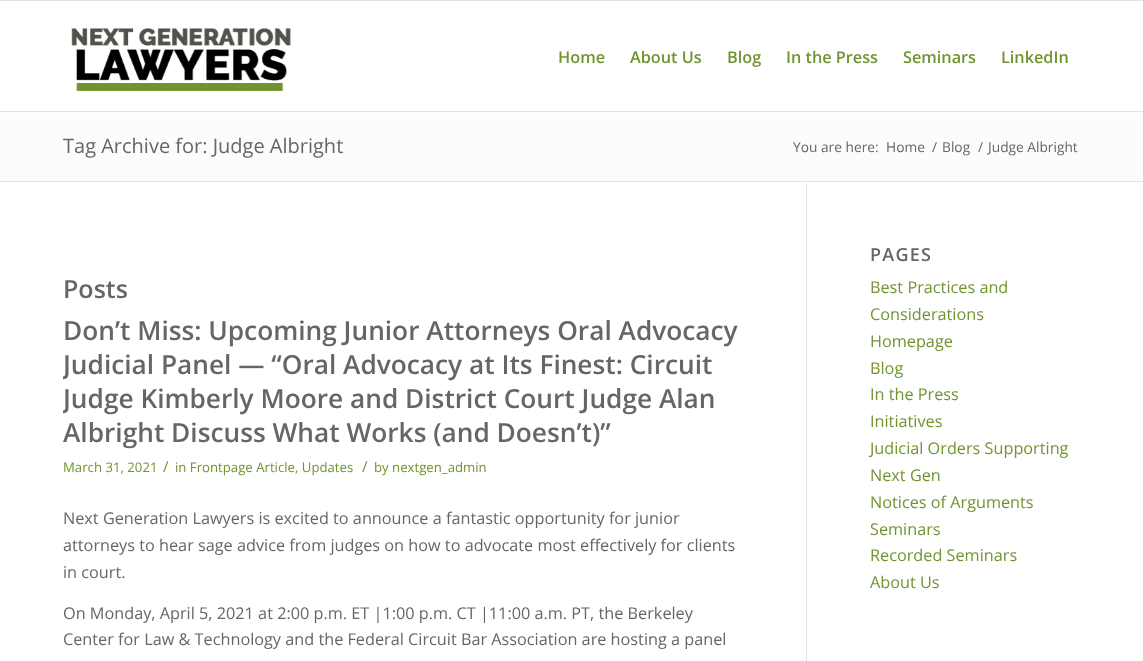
<!DOCTYPE html>
<meta charset="utf-8">
<style>body { margin: 0 } canvas { display: block }</style>
<canvas id="canvas" width="1143" height="661"></canvas>
<img id="img1" src="img_01.png" hidden>
<script>
window.onload = function () {
	const canvas = document.getElementById("canvas");
	const ctx = canvas.getContext("2d");
	ctx.miterLimit = 4;
	ctx.fontKerning = "normal";
	function txt(s, x, y) {
		ctx.fillText(s, x, y);
	}
	function fill(x, y, w, h) {
		ctx.fillRect(x, y, w, h);
	}
	function img(id, x, y, w, h) {
		ctx.drawImage(document.getElementById(id), x, y, w, h);
	}

	ctx.fillStyle = "#FFFFFF";
	fill(0, 0, 1143, 661);
	ctx.fillStyle = "#E1E1E1";
	fill(0, 0, 1143, 1);
	fill(0, 111, 1143, 1);
	img("img1", 71, 28, 220, 63);
	ctx.fillStyle = "#FCFCFC";
	fill(0, 113, 1143, 68);
	ctx.fillStyle = "#E1E1E1";
	fill(0, 181, 1143, 1);
	fill(806, 183, 1, 478);
	ctx.font = "600 16.25px Open Sans";
	ctx.fillStyle = "#719430";
	txt("Home", 558, 63);
	txt("About Us", 630, 63);
	txt("Blog", 727, 63);
	txt("In the Press", 786, 63);
	txt("Seminars", 903, 63);
	txt("LinkedIn", 1001, 63);
	ctx.font = "20px Open Sans";
	ctx.fillStyle = "#666666";
	txt("Tag Archive for: Judge Albright", 63, 153);
	ctx.font = "13.75px Open Sans";
	txt("You are here:", 793, 152);
	txt("Home", 886, 152);
	txt("/", 932, 152);
	txt("Blog", 942, 152);
	txt("/", 978, 152);
	txt("Judge Albright", 988, 152);
	ctx.font = "600 25px Open Sans";
	txt("Posts", 63, 298);
	ctx.font = "600 26.25px Open Sans";
	txt("Don’t Miss: Upcoming Junior Attorneys Oral Advocacy", 63, 340);
	ctx.save();
	ctx.beginPath();
	ctx.rect(63, 314, 743, 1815);
	ctx.clip();
	txt("Judicial Panel — “Oral Advocacy at Its Finest: Circuit", 63, 374);
	txt("Judge Kimberly Moore and District Court Judge Alan", 63, 408);
	ctx.restore();
	txt("Albright Discuss What Works (and Doesn’t)”", 63, 442);
	ctx.font = "13.2px Open Sans";
	ctx.fillStyle = "#719430";
	txt("March 31, 2021", 63, 472);
	ctx.font = "15px Open Sans";
	txt("/", 163, 472);
	ctx.font = "13.2px Open Sans";
	txt("in Frontpage Article, Updates", 175, 472);
	ctx.font = "15px Open Sans";
	txt("/", 362, 472);
	ctx.font = "13.2px Open Sans";
	txt("by nextgen_admin", 374, 472);
	ctx.font = "16.25px Open Sans";
	ctx.fillStyle = "#666666";
	txt("Next Generation Lawyers is excited to announce a fantastic opportunity for junior", 63, 524);
	txt("attorneys to hear sage advice from judges on how to advocate most effectively for clients", 63, 551);
	txt("in court.", 63, 578);
	txt("On Monday, April 5, 2021 at 2:00 p.m. ET |1:00 p.m. CT |11:00 a.m. PT, the Berkeley", 63, 619);
	txt("Center for Law & Technology and the Federal Circuit Bar Association are hosting a panel", 63, 645);
	ctx.letterSpacing = "1.25px";
	ctx.font = "600 18px Open Sans";
	txt("PAGES", 870, 261);
	ctx.letterSpacing = "0px";
	ctx.font = "16.25px Open Sans";
	ctx.fillStyle = "#719430";
	txt("Best Practices and", 870, 293);
	txt("Considerations", 870, 320);
	txt("Homepage", 870, 347);
	txt("Blog", 870, 374);
	txt("In the Press", 870, 400);
	txt("Initiatives", 870, 427);
	txt("Judicial Orders Supporting", 870, 454);
	txt("Next Gen", 870, 481);
	txt("Notices of Arguments", 870, 508);
	txt("Seminars", 870, 535);
	txt("Recorded Seminars", 870, 561);
	txt("About Us", 870, 588);
};
</script>
